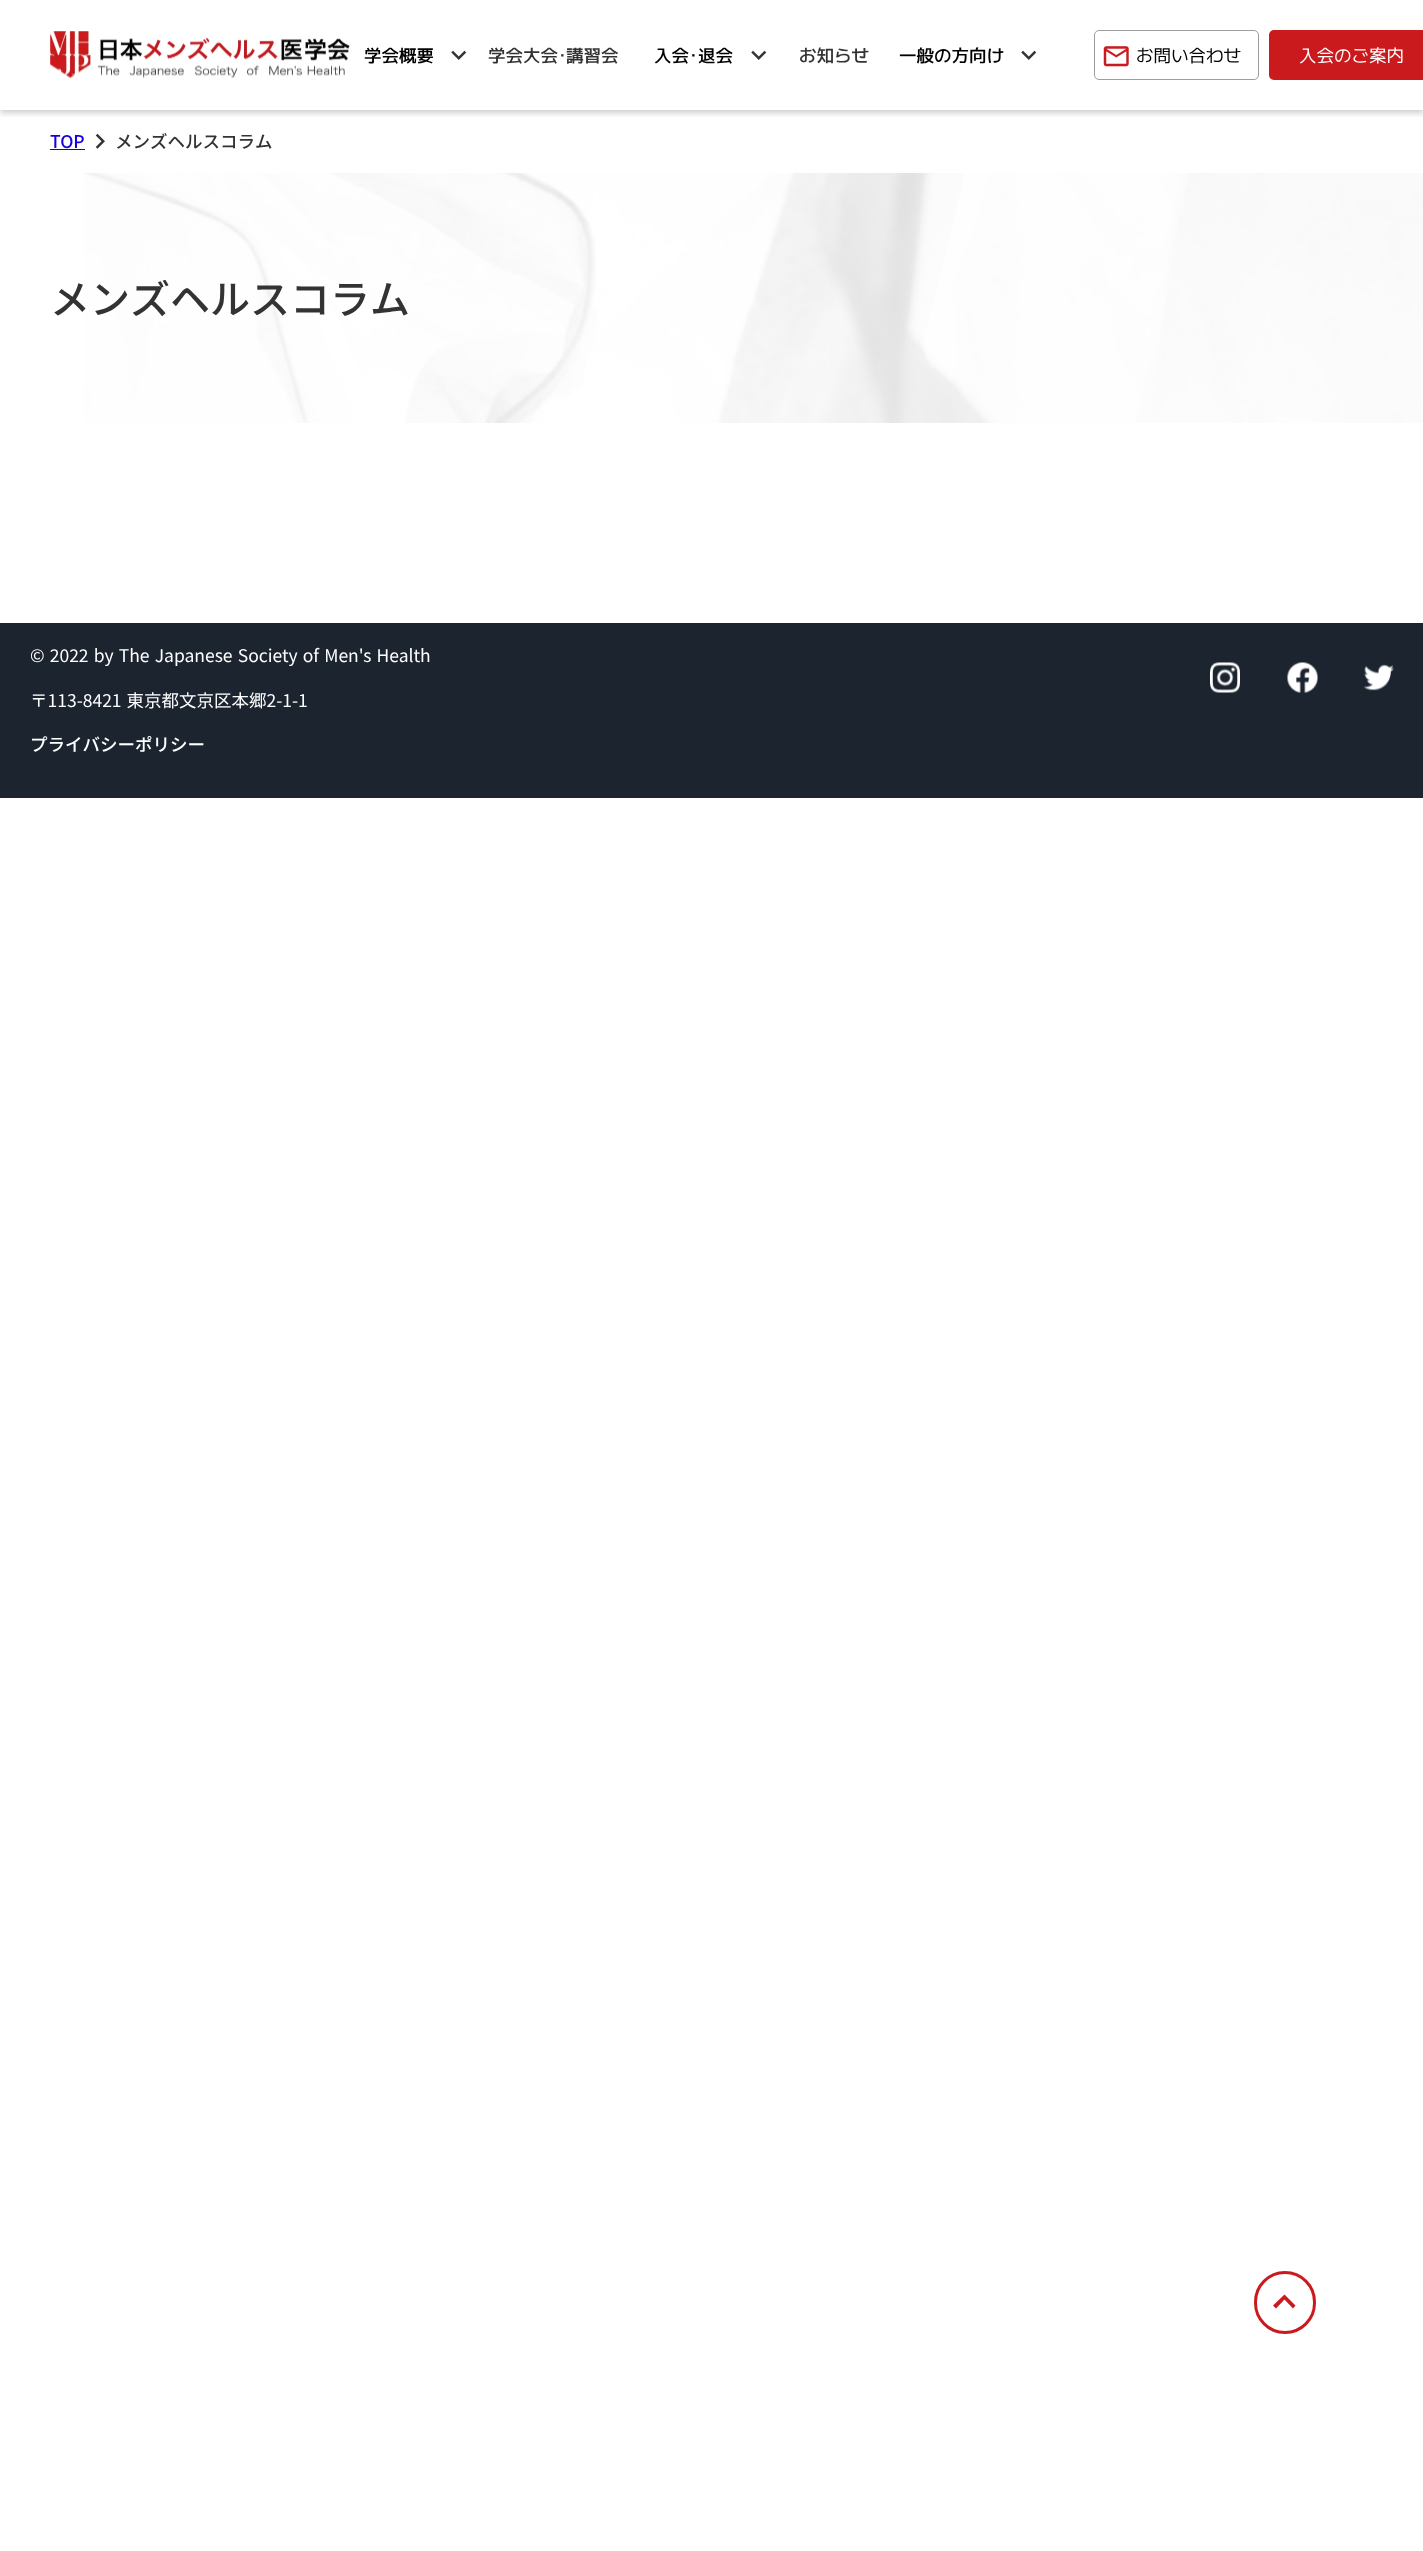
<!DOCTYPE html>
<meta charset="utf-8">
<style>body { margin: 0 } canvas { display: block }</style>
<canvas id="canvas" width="1423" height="2551"></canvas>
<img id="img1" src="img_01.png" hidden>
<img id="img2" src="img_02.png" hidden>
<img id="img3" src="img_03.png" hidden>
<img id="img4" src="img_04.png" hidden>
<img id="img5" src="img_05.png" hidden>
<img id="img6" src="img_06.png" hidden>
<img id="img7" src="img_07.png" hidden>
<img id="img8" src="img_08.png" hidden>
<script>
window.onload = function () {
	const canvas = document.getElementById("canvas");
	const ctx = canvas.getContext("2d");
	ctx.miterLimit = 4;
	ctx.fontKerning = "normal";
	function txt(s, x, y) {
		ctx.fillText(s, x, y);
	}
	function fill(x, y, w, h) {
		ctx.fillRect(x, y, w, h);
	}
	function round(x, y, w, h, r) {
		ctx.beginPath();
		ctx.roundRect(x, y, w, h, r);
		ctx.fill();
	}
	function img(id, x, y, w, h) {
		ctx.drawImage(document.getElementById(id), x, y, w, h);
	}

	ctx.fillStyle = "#FFFFFF";
	fill(0, 0, 1423, 2551);
	ctx.save();
	ctx.beginPath();
	ctx.rect(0, 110, 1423, 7);
	ctx.clip();
	ctx.fillStyle = "rgba(0, 0, 0, 0.2)";
	ctx.filter = "blur(3px)";
	ctx.beginPath();
	ctx.rect(0, 3, 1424, 110);
	ctx.fill();
	ctx.filter = "none";
	ctx.restore();
	img("img1", 50, 31, 300, 48);
	img("img2", 451, 50, 16, 10);
	img("img2", 751, 50, 16, 10);
	img("img2", 1021, 50, 16, 10);
	ctx.beginPath();
	ctx.roundRect(1094.5, 30.5, 164, 49, 4.5);
	ctx.strokeStyle = "#9D9D9D";
	ctx.stroke();
	img("img3", 1103, 46, 26, 21);
	ctx.fillStyle = "#CB1A1D";
	round(1269, 30, 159, 50, 5);
	ctx.fillStyle = "#1500DF";
	fill(50, 149, 35, 1);
	img("img4", 95, 133, 10, 16);
	img("img5", 84, 173, 1339, 250);
	ctx.fillStyle = "#1C242F";
	fill(0, 623, 1423, 175);
	img("img6", 1210, 662, 30, 31);
	img("img7", 1287, 662, 31, 31);
	img("img8", 1363, 664, 31, 27);
	ctx.beginPath();
	ctx.roundRect(1255.5, 2272.5, 59, 60, 29.5);
	ctx.strokeStyle = "#CB1A1D";
	ctx.lineWidth = 3;
	ctx.stroke();
	ctx.fillStyle = "#CB1A1D";
	ctx.beginPath();
	ctx.moveTo(1273, 2305.5);
	ctx.lineTo(1284.5, 2294.5);
	ctx.lineTo(1295.5, 2305.5);
	ctx.lineTo(1293, 2308.5);
	ctx.lineTo(1284.5, 2299.5);
	ctx.lineTo(1276, 2308.5);
	ctx.closePath();
	ctx.fill();
	ctx.font = "500 17.5px 'M PLUS 2'";
	ctx.fillStyle = "#000000";
	txt("学会概要", 364, 62);
	ctx.fillStyle = "#333333";
	txt("学会大会", 488, 62);
	ctx.font = "17.5px IPAPGothic";
	txt("･", 558, 62);
	ctx.font = "500 17.5px 'M PLUS 2'";
	txt("講習会", 566, 62);
	ctx.fillStyle = "#000000";
	txt("入会", 654, 62);
	ctx.font = "17.5px IPAPGothic";
	txt("･", 689, 62);
	ctx.font = "500 17.5px 'M PLUS 2'";
	txt("退会", 698, 62);
	ctx.fillStyle = "#333333";
	txt("お知らせ", 799, 62);
	ctx.fillStyle = "#000000";
	txt("一般の方向け", 899, 62);
	ctx.font = "17.5px 'M PLUS 2'";
	txt("お問い合わせ", 1136, 62);
	ctx.fillStyle = "#FFFFFF";
	txt("入会のご案内", 1299, 62);
	ctx.font = "500 17.5px Noto Sans JP";
	ctx.fillStyle = "#1500DF";
	txt("TOP", 50, 148);
	ctx.fillStyle = "#333333";
	txt("メンズヘルスコラム", 115, 148);
	ctx.font = "500 40px Noto Sans JP";
	txt("メンズヘルスコラム", 50, 314);
	ctx.wordSpacing = "1.25px";
	ctx.font = "17.5px Noto Sans JP";
	ctx.fillStyle = "#FFFFFF";
	txt("© 2022 by The Japanese Society of Men's Health", 30, 662);
	ctx.wordSpacing = "1px";
	txt("〒113-8421 東京都文京区本郷2-1-1", 30, 707);
	ctx.wordSpacing = "0px";
	ctx.font = "500 17.5px Noto Sans JP";
	txt("プライバシーポリシー", 30, 751);
};
</script>
